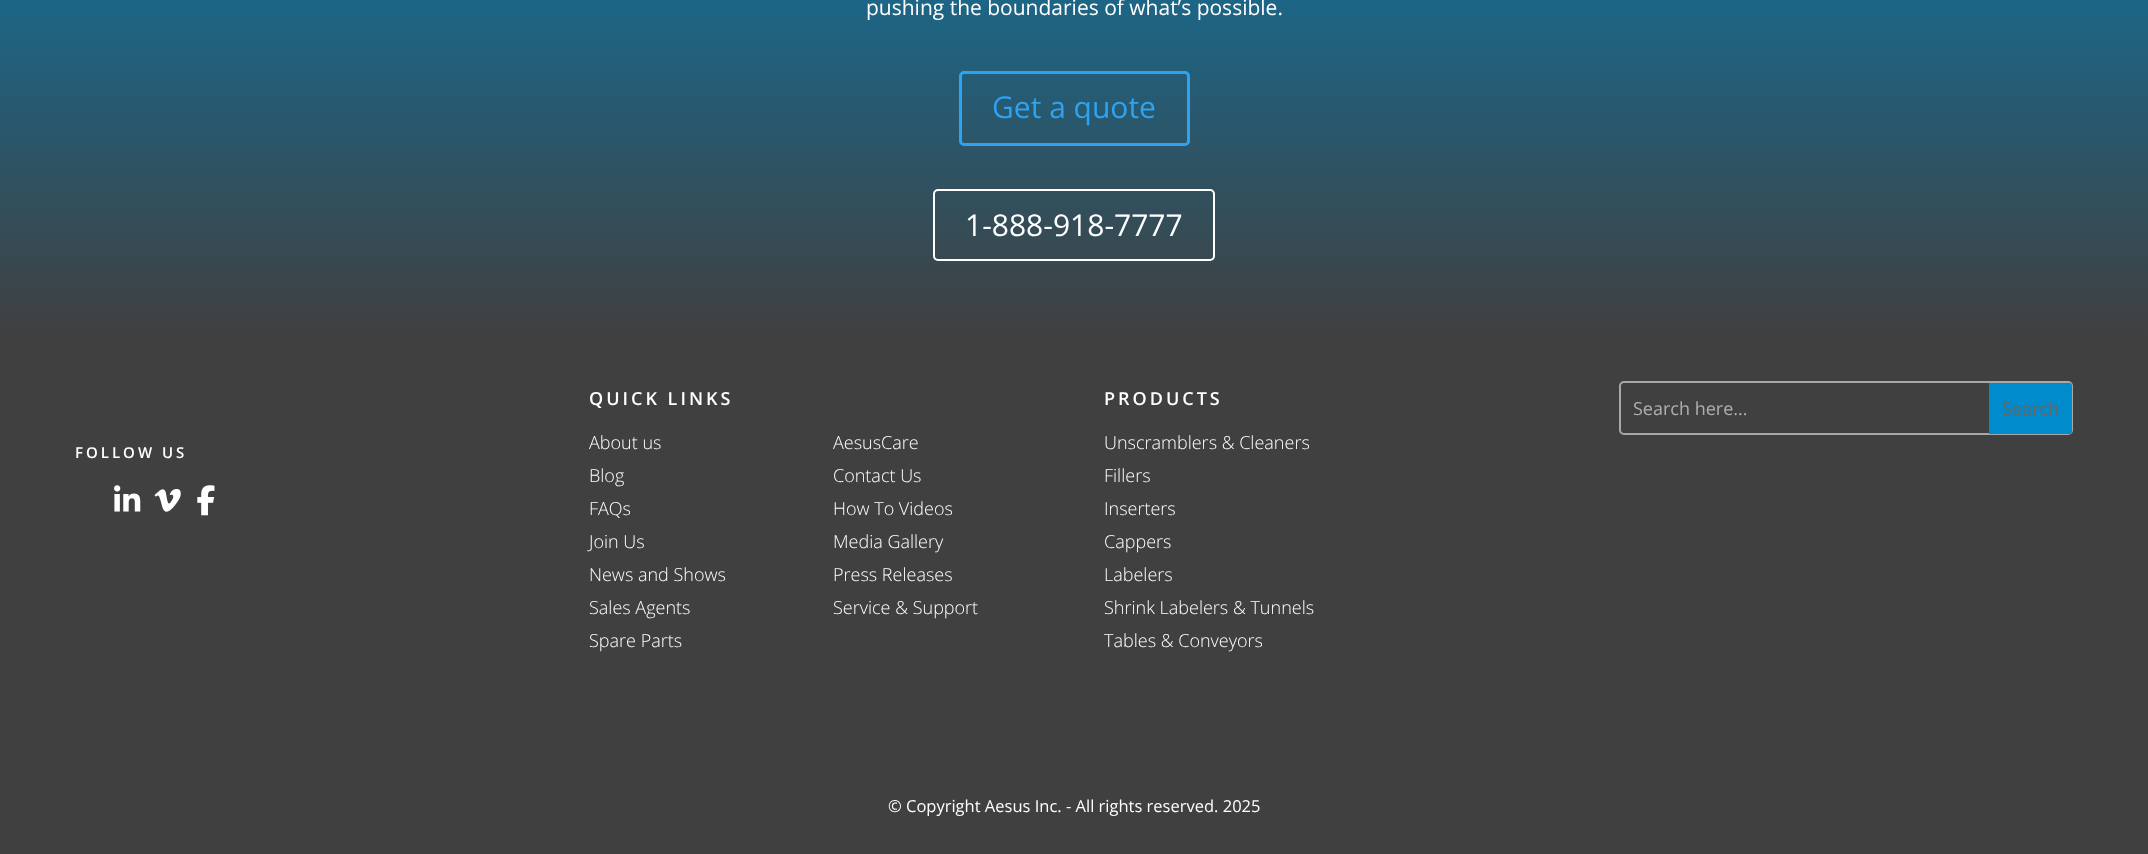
<!DOCTYPE html>
<meta charset="utf-8">
<style>body { margin: 0 } canvas { display: block }</style>
<canvas id="canvas" width="2148" height="854"></canvas>
<img id="img1" src="img_01.png" hidden>
<img id="img2" src="img_02.png" hidden>
<img id="img3" src="img_03.png" hidden>
<script>
window.onload = function () {
	const canvas = document.getElementById("canvas");
	const ctx = canvas.getContext("2d");
	ctx.miterLimit = 4;
	ctx.fontKerning = "normal";
	function txt(s, x, y) {
		ctx.fillText(s, x, y);
	}
	function fill(x, y, w, h) {
		ctx.fillRect(x, y, w, h);
	}
	function img(id, x, y, w, h) {
		ctx.drawImage(document.getElementById(id), x, y, w, h);
	}
	let gradient;

	ctx.fillStyle = "#FFFFFF";
	fill(0, 0, 2148, 854);
	gradient = ctx.createLinearGradient(1074, 336, 1074, -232);
	gradient.addColorStop(0, "#404040");
	gradient.addColorStop(0.6, "#1C6687");
	ctx.fillStyle = gradient;
	fill(0, 0, 2148, 336);
	ctx.beginPath();
	ctx.roundRect(960.5, 72.5, 228, 72, 3.5);
	ctx.strokeStyle = "#2EA3F2";
	ctx.lineWidth = 3;
	ctx.stroke();
	ctx.beginPath();
	ctx.roundRect(934, 190, 280, 70, 4);
	ctx.strokeStyle = "#FFFFFF";
	ctx.lineWidth = 2;
	ctx.stroke();
	ctx.fillStyle = "#404040";
	fill(0, 336, 2148, 518);
	ctx.beginPath();
	ctx.roundRect(1620, 382, 452, 52, 4);
	ctx.strokeStyle = "#A8A8A8";
	ctx.stroke();
	ctx.fillStyle = "#008BCC";
	ctx.beginPath();
	ctx.roundRect(1989, 383, 83, 51, [0, 3, 3, 0]);
	ctx.fill();
	img("img1", 114, 485, 27, 27);
	img("img2", 154, 489, 27, 23);
	img("img3", 197, 485, 18, 31);
	ctx.font = "21px Open Sans";
	ctx.fillStyle = "#FFFFFF";
	txt("pushing the boundaries of what’s possible.", 866, 15);
	ctx.font = "30px Open Sans";
	ctx.fillStyle = "#2EA3F2";
	txt("Get a quote", 992, 118);
	ctx.fillStyle = "#FFFFFF";
	txt("1-888-918-7777", 965, 236);
	ctx.letterSpacing = "3px";
	ctx.font = "600 18px Open Sans";
	txt("QUICK LINKS", 589, 405);
	ctx.letterSpacing = "0px";
	ctx.font = "300 18px Open Sans";
	txt("About us", 589, 449);
	txt("AesusCare", 833, 449);
	txt("Blog", 589, 482);
	txt("Contact Us", 833, 482);
	txt("FAQs", 589, 515);
	txt("How To Videos", 833, 515);
	txt("Join Us", 589, 548);
	txt("Media Gallery", 833, 548);
	txt("News and Shows", 589, 581);
	txt("Press Releases", 833, 581);
	txt("Sales Agents", 589, 614);
	txt("Service & Support", 833, 614);
	txt("Spare Parts", 589, 647);
	ctx.letterSpacing = "3px";
	ctx.font = "600 18px Open Sans";
	txt("PRODUCTS", 1104, 405);
	ctx.letterSpacing = "0px";
	ctx.font = "300 18px Open Sans";
	txt("Unscramblers & Cleaners", 1104, 449);
	txt("Fillers", 1104, 482);
	txt("Inserters", 1104, 515);
	txt("Cappers", 1104, 548);
	txt("Labelers", 1104, 581);
	txt("Shrink Labelers & Tunnels", 1104, 614);
	txt("Tables & Conveyors", 1104, 647);
	ctx.font = "18px Open Sans";
	ctx.fillStyle = "#AFAFAF";
	txt("Search here...", 1633, 415);
	ctx.fillStyle = "#666666";
	txt("Search", 2002, 415);
	ctx.letterSpacing = "3px";
	ctx.font = "600 15px Open Sans";
	ctx.fillStyle = "#FFFFFF";
	txt("FOLLOW US", 75, 458);
	ctx.letterSpacing = "0px";
	ctx.font = "16.5px Open Sans";
	txt("© Copyright Aesus Inc. - All rights reserved. 2025", 888, 812);
};
</script>
